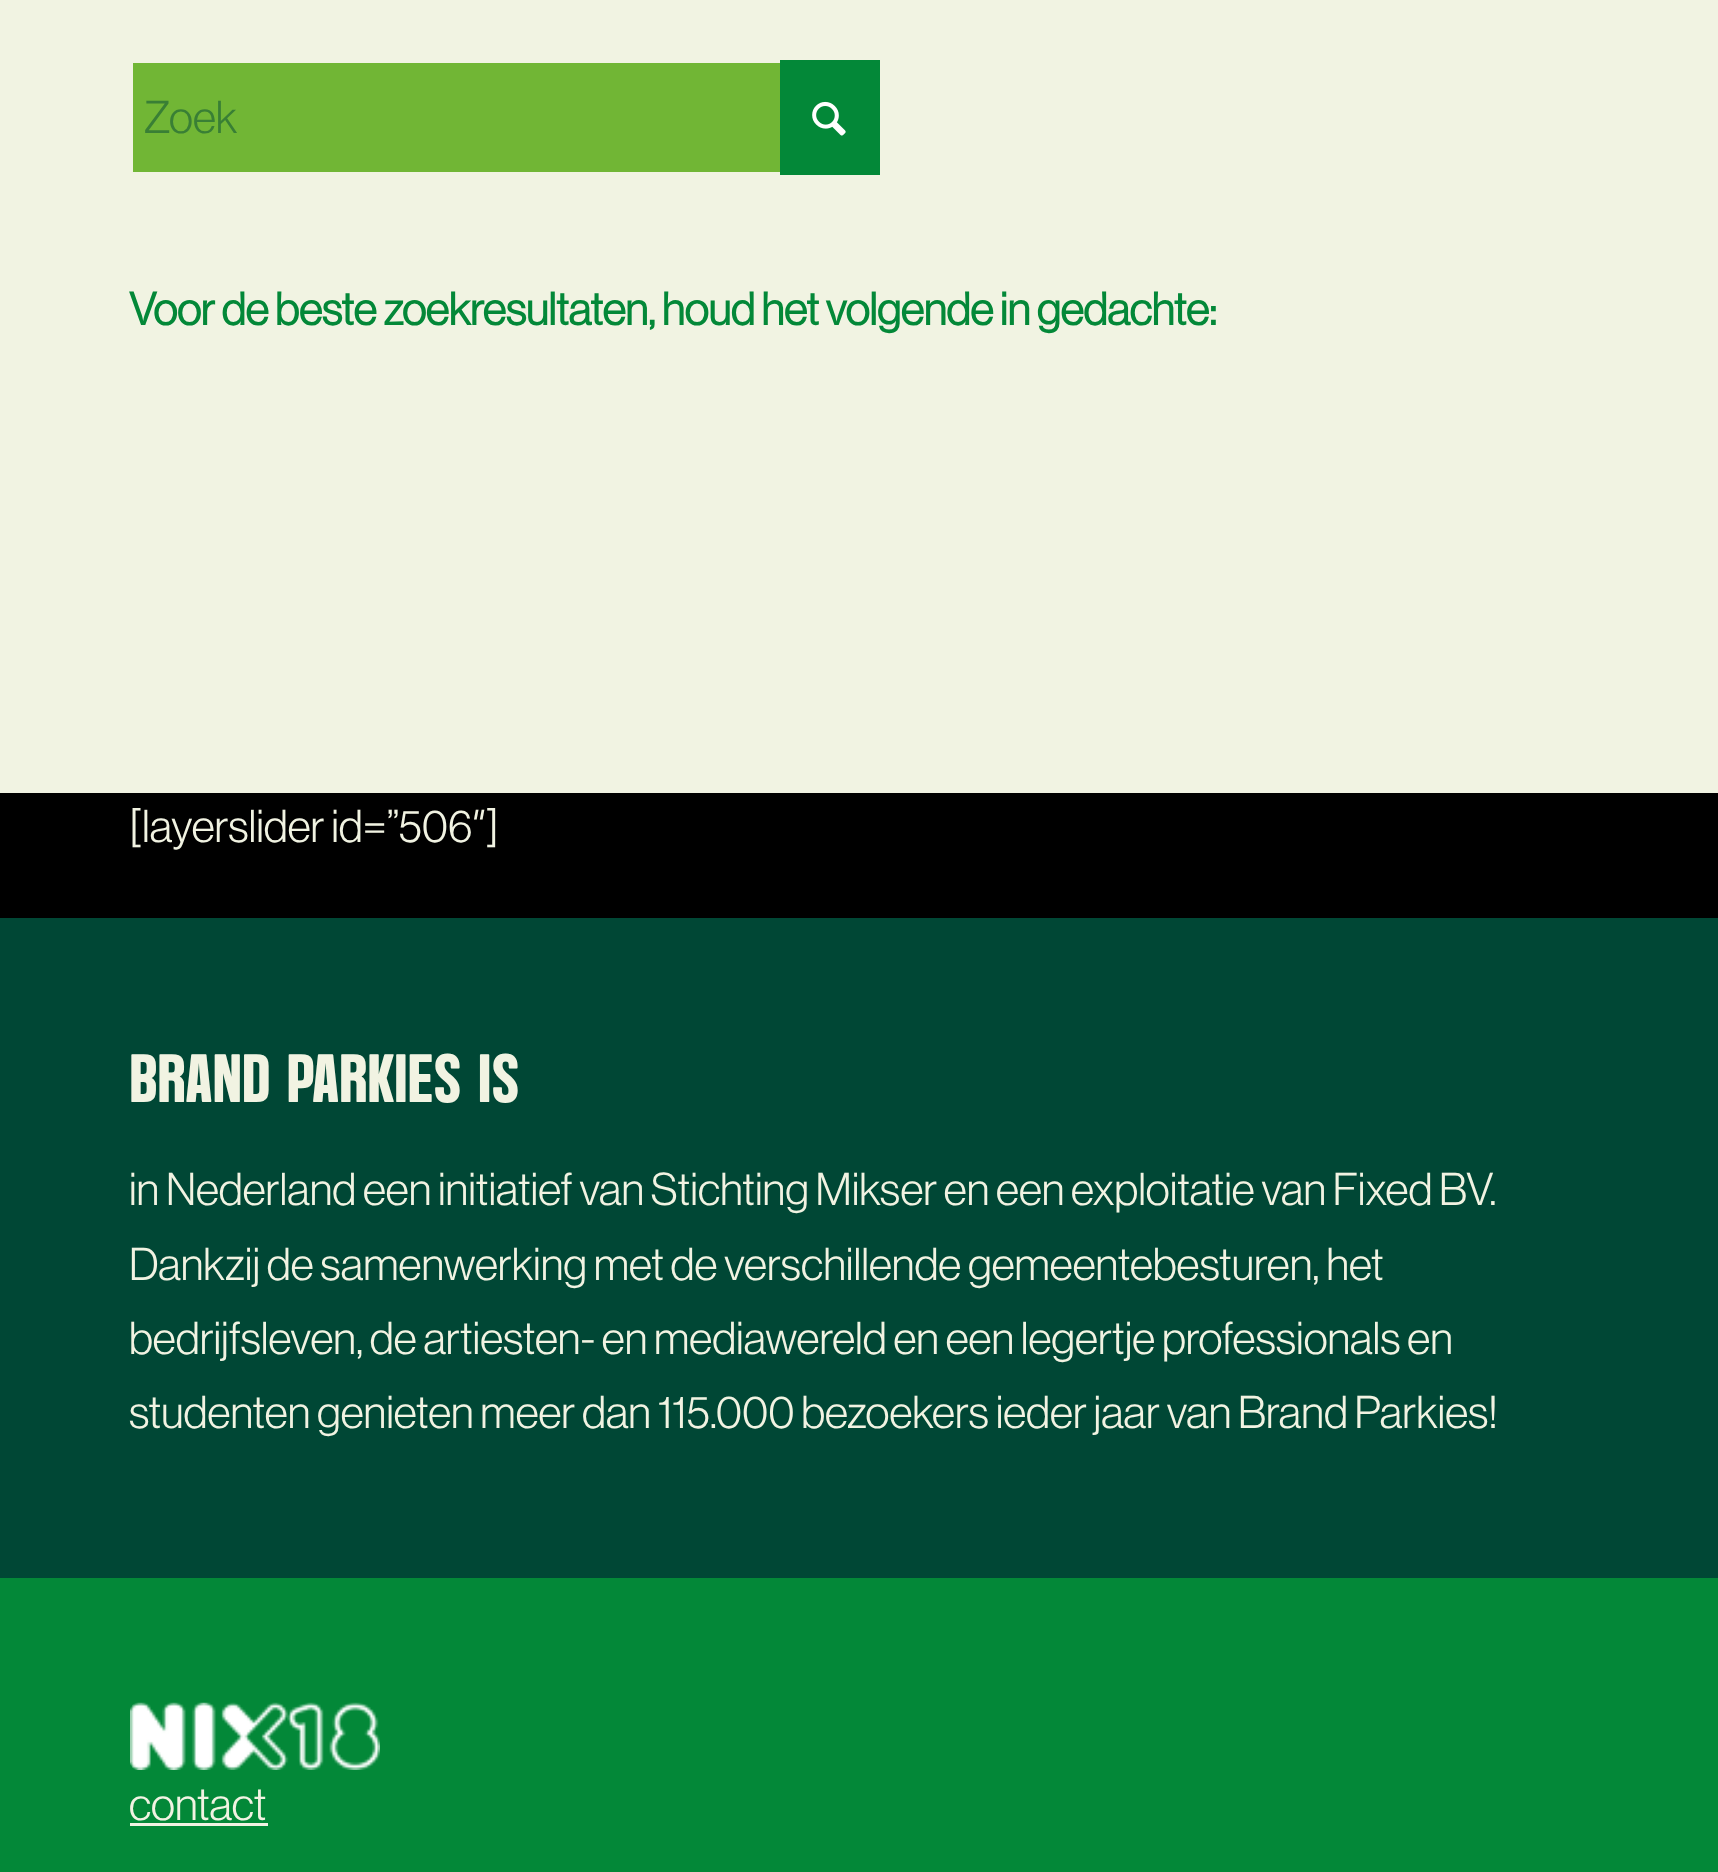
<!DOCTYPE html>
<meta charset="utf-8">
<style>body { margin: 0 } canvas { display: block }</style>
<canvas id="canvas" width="1718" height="1872"></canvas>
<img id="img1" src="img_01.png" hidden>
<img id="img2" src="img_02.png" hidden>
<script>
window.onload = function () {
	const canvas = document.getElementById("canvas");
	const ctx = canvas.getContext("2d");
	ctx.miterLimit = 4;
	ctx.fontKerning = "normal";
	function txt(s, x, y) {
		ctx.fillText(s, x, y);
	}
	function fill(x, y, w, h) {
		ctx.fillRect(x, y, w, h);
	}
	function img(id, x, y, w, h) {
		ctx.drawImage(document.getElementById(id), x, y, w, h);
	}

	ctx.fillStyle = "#F1F3E2";
	fill(0, 0, 1718, 1872);
	ctx.fillStyle = "#71B635";
	fill(133, 63, 647, 109);
	ctx.fillStyle = "#038838";
	fill(780, 60, 100, 115);
	img("img1", 812, 101, 34, 35);
	ctx.fillStyle = "#000000";
	fill(0, 793, 1718, 125);
	ctx.fillStyle = "#004735";
	fill(0, 918, 1718, 660);
	ctx.fillStyle = "#038838";
	fill(0, 1578, 1718, 294);
	img("img2", 130, 1702, 250, 68);
	ctx.fillStyle = "#F2F3E3";
	fill(130, 1823, 138, 3);
	ctx.font = "300 45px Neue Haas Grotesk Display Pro";
	ctx.fillStyle = "#397F35";
	txt("Zoek", 144, 133);
	ctx.font = "bold 45px Neue Haas Grotesk Display Pro";
	ctx.fillStyle = "#038838";
	txt("Voor de beste zoekresultaten, houd het volgende in gedachte:", 129, 325);
	ctx.font = "300 45px Neue Haas Grotesk Display Pro";
	ctx.fillStyle = "#F1F3E2";
	txt("[layerslider id=”506″]", 129, 842);
	ctx.font = "70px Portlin";
	txt("BRAND PARKIES IS", 129, 1102);
	ctx.font = "300 45px Neue Haas Grotesk Display Pro";
	txt("in Nederland een initiatief van Stichting Mikser en een exploitatie van Fixed BV.", 129, 1205);
	txt("Dankzij de samenwerking met de verschillende gemeentebesturen, het", 129, 1280);
	txt("bedrijfsleven, de artiesten- en mediawereld en een legertje professionals en", 129, 1354);
	txt("studenten genieten meer dan 115.000 bezoekers ieder jaar van Brand Parkies!", 129, 1428);
	txt("contact", 129, 1820);
};
</script>
